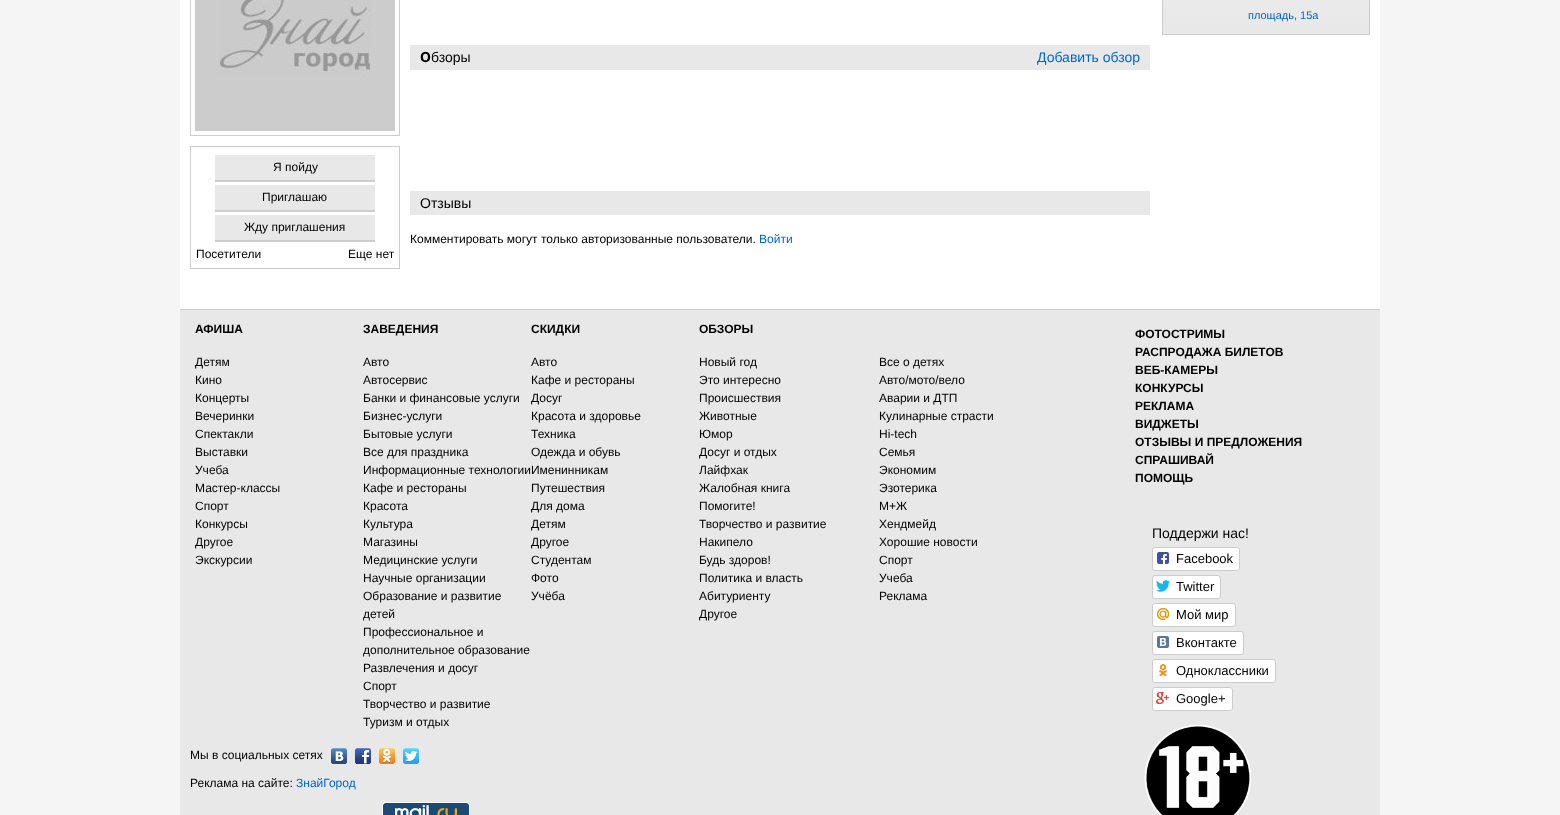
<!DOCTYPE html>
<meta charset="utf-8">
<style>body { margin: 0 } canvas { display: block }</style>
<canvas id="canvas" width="1560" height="815"></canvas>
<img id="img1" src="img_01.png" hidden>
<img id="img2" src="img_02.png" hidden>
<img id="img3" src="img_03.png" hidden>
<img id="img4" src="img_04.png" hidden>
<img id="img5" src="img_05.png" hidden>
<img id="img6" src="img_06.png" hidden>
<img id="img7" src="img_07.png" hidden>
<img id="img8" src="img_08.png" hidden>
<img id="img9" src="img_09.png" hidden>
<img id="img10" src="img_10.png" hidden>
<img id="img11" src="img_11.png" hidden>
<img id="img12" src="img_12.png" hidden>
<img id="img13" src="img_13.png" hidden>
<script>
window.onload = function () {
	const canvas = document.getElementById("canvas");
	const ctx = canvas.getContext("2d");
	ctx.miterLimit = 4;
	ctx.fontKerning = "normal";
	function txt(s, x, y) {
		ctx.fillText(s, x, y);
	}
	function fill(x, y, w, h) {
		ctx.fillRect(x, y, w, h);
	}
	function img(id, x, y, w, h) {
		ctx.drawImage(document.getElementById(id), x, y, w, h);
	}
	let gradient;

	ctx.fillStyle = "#F5F5F5";
	fill(0, 0, 1560, 815);
	ctx.fillStyle = "#FFFFFF";
	fill(180, 0, 1200, 309);
	ctx.strokeStyle = "#CCCCCC";
	ctx.strokeRect(1162.5, -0.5, 207, 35);
	gradient = ctx.createLinearGradient(1266, -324, 1266, 34);
	gradient.addColorStop(0, "#FFFFFF");
	gradient.addColorStop(1, "#E8E8E8");
	ctx.fillStyle = gradient;
	fill(1163, 0, 206, 34);
	ctx.strokeRect(190.5, -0.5, 209, 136);
	ctx.fillStyle = "#CCCCCC";
	fill(195, 0, 200, 131);
	img("img1", 219, 0, 152, 75);
	ctx.strokeRect(190.5, 146.5, 209, 122);
	ctx.fillStyle = "#CDCDCD";
	fill(215, 180, 160, 2);
	ctx.fillStyle = "#E8E8E8";
	fill(215, 155, 160, 25);
	ctx.fillStyle = "#CDCDCD";
	fill(215, 210, 160, 2);
	ctx.fillStyle = "#E8E8E8";
	fill(215, 185, 160, 25);
	ctx.fillStyle = "#CDCDCD";
	fill(215, 240, 160, 2);
	ctx.fillStyle = "#E8E8E8";
	fill(215, 215, 160, 25);
	fill(410, 45, 740, 25);
	fill(410, 191, 740, 24);
	fill(180, 310, 1200, 505);
	ctx.fillStyle = "#CCCCCC";
	fill(180, 309, 1200, 1);
	ctx.fillStyle = "#FFFFFF";
	ctx.beginPath();
	ctx.roundRect(1152.5, 547.5, 87, 23, 2.5);
	ctx.fill();
	ctx.stroke();
	img("img2", 1157, 552, 12, 12);
	ctx.beginPath();
	ctx.roundRect(1152.5, 575.5, 68, 23, 2.5);
	ctx.fill();
	ctx.stroke();
	img("img3", 1156, 580, 14, 12);
	ctx.beginPath();
	ctx.roundRect(1152.5, 603.5, 83, 23, 2.5);
	ctx.fill();
	ctx.stroke();
	img("img4", 1157, 608, 12, 12);
	ctx.beginPath();
	ctx.roundRect(1152.5, 631.5, 91, 23, 2.5);
	ctx.fill();
	ctx.stroke();
	img("img5", 1157, 636, 12, 12);
	ctx.beginPath();
	ctx.roundRect(1152.5, 659.5, 123, 23, 2.5);
	ctx.fill();
	ctx.stroke();
	img("img6", 1159, 664, 8, 12);
	ctx.beginPath();
	ctx.roundRect(1152.5, 687.5, 80, 23, 2.5);
	ctx.fill();
	ctx.stroke();
	img("img7", 1156, 692, 13, 12);
	img("img8", 331, 748, 16, 16);
	img("img9", 355, 748, 16, 16);
	img("img10", 379, 748, 16, 16);
	img("img11", 403, 748, 16, 16);
	img("img12", 1144, 724, 107, 91);
	img("img13", 382, 802, 88, 13);
	ctx.font = "11px Liberation Sans";
	ctx.fillStyle = "#0066CC";
	txt("площадь, 15а", 1248, 19);
	ctx.font = "12px Liberation Sans";
	ctx.fillStyle = "#000000";
	txt("Я пойду", 273, 171);
	txt("Приглашаю", 262, 201);
	txt("Жду приглашения", 244, 231);
	txt("Посетители", 196, 258);
	txt("Еще нет", 348, 258);
	ctx.font = "bold 14px Noto Sans";
	txt("О", 420, 62);
	ctx.font = "14px Liberation Sans";
	txt("бзоры", 431, 62);
	ctx.fillStyle = "#0066CC";
	txt("Добавить обзор", 1037, 62);
	ctx.fillStyle = "#000000";
	txt("Отзывы", 420, 208);
	ctx.font = "12px Liberation Sans";
	txt("Комментировать могут только авторизованные пользователи.", 410, 243);
	ctx.fillStyle = "#0066CC";
	txt("Войти", 759, 243);
	ctx.font = "bold 12px Liberation Sans";
	ctx.fillStyle = "#000000";
	txt("АФИША", 195, 333);
	ctx.font = "12px Liberation Sans";
	txt("Детям", 195, 366);
	txt("Кино", 195, 384);
	txt("Концерты", 195, 402);
	txt("Вечеринки", 195, 420);
	txt("Спектакли", 195, 438);
	txt("Выставки", 195, 456);
	txt("Учеба", 195, 474);
	txt("Мастер-классы", 195, 492);
	txt("Спорт", 195, 510);
	txt("Конкурсы", 195, 528);
	txt("Другое", 195, 546);
	txt("Экскурсии", 195, 564);
	ctx.font = "bold 12px Liberation Sans";
	txt("ЗАВЕДЕНИЯ", 363, 333);
	ctx.font = "12px Liberation Sans";
	txt("Авто", 363, 366);
	txt("Автосервис", 363, 384);
	txt("Банки и финансовые услуги", 363, 402);
	txt("Бизнес-услуги", 363, 420);
	txt("Бытовые услуги", 363, 438);
	txt("Все для праздника", 363, 456);
	txt("Информационные технологииИменинникам", 363, 474);
	txt("Кафе и рестораны", 363, 492);
	txt("Красота", 363, 510);
	txt("Культура", 363, 528);
	txt("Магазины", 363, 546);
	txt("Медицинские услуги", 363, 564);
	txt("Научные организации", 363, 582);
	txt("Образование и развитие", 363, 600);
	txt("детей", 363, 618);
	txt("Профессиональное и", 363, 636);
	txt("дополнительное образование", 363, 654);
	txt("Развлечения и досуг", 363, 672);
	txt("Спорт", 363, 690);
	txt("Творчество и развитие", 363, 708);
	txt("Туризм и отдых", 363, 726);
	ctx.font = "bold 12px Liberation Sans";
	txt("СКИДКИ", 531, 333);
	ctx.font = "12px Liberation Sans";
	txt("Авто", 531, 366);
	txt("Кафе и рестораны", 531, 384);
	txt("Досуг", 531, 402);
	txt("Красота и здоровье", 531, 420);
	txt("Техника", 531, 438);
	txt("Одежда и обувь", 531, 456);
	txt("Путешествия", 531, 492);
	txt("Для дома", 531, 510);
	txt("Детям", 531, 528);
	txt("Другое", 531, 546);
	txt("Студентам", 531, 564);
	txt("Фото", 531, 582);
	txt("Учёба", 531, 600);
	ctx.font = "bold 12px Liberation Sans";
	txt("ОБЗОРЫ", 699, 333);
	ctx.font = "12px Liberation Sans";
	txt("Новый год", 699, 366);
	txt("Все о детях", 879, 366);
	txt("Это интересно", 699, 384);
	txt("Авто/мото/вело", 879, 384);
	txt("Происшествия", 699, 402);
	txt("Аварии и ДТП", 879, 402);
	txt("Животные", 699, 420);
	txt("Кулинарные страсти", 879, 420);
	txt("Юмор", 699, 438);
	txt("Hi-tech", 879, 438);
	txt("Досуг и отдых", 699, 456);
	txt("Семья", 879, 456);
	txt("Лайфхак", 699, 474);
	txt("Экономим", 879, 474);
	txt("Жалобная книга", 699, 492);
	txt("Эзотерика", 879, 492);
	txt("Помогите!", 699, 510);
	txt("М+Ж", 879, 510);
	txt("Творчество и развитие", 699, 528);
	txt("Хендмейд", 879, 528);
	txt("Накипело", 699, 546);
	txt("Хорошие новости", 879, 546);
	txt("Будь здоров!", 699, 564);
	txt("Спорт", 879, 564);
	txt("Политика и власть", 699, 582);
	txt("Учеба", 879, 582);
	txt("Абитуриенту", 699, 600);
	txt("Реклама", 879, 600);
	txt("Другое", 699, 618);
	ctx.font = "bold 12px Liberation Sans";
	txt("ФОТОСТРИМЫ", 1135, 338);
	txt("РАСПРОДАЖА БИЛЕТОВ", 1135, 356);
	txt("ВЕБ-КАМЕРЫ", 1135, 374);
	txt("КОНКУРСЫ", 1135, 392);
	txt("РЕКЛАМА", 1135, 410);
	txt("ВИДЖЕТЫ", 1135, 428);
	txt("ОТЗЫВЫ И ПРЕДЛОЖЕНИЯ", 1135, 446);
	txt("СПРАШИВАЙ", 1135, 464);
	txt("ПОМОЩЬ", 1135, 482);
	ctx.font = "14px Liberation Sans";
	txt("Поддержи нас!", 1152, 538);
	ctx.font = "13px Liberation Sans";
	txt("Facebook", 1176, 563);
	txt("Twitter", 1176, 591);
	txt("Мой мир", 1176, 619);
	txt("Вконтакте", 1176, 647);
	txt("Одноклассники", 1176, 675);
	txt("Google+", 1176, 703);
	ctx.font = "12px Liberation Sans";
	txt("Мы в социальных сетях", 190, 759);
	txt("Реклама на сайте:", 190, 787);
	ctx.fillStyle = "#0066CC";
	txt("ЗнайГород", 296, 787);
};
</script>
